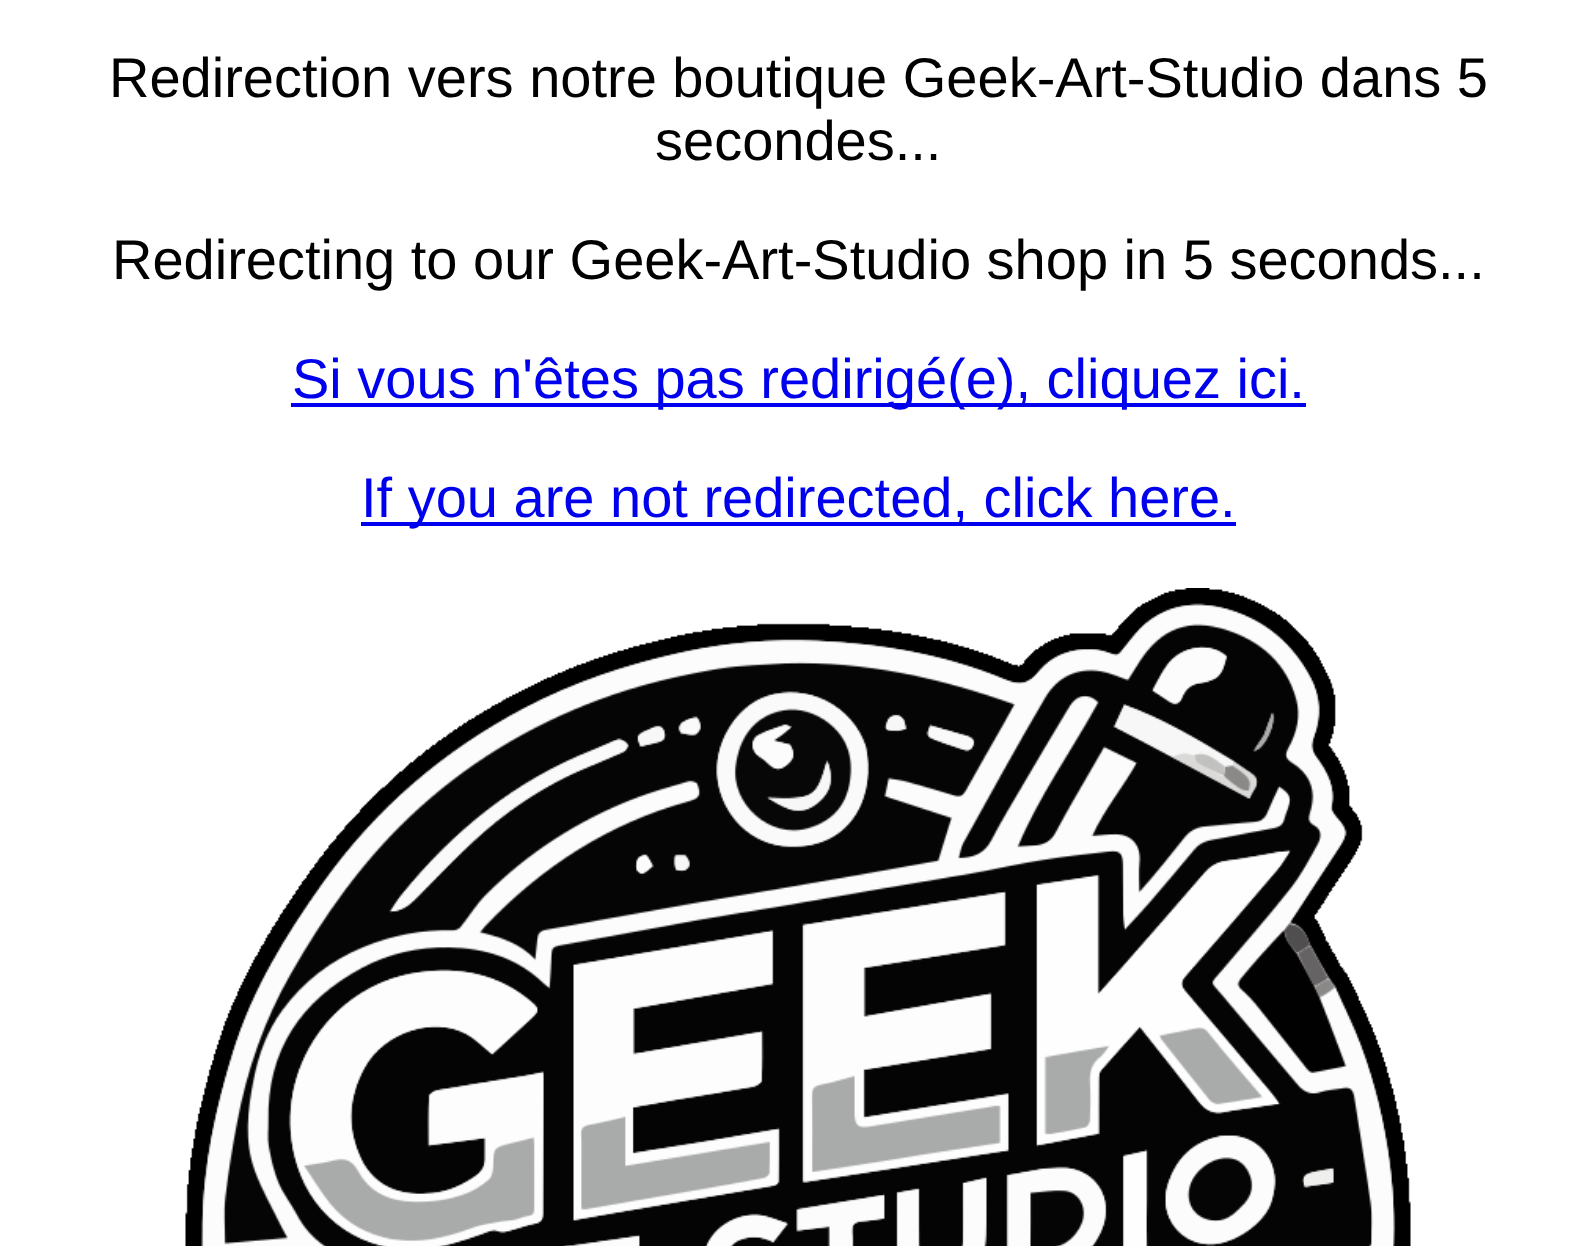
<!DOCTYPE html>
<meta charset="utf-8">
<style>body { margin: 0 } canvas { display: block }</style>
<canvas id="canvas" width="1596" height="1246"></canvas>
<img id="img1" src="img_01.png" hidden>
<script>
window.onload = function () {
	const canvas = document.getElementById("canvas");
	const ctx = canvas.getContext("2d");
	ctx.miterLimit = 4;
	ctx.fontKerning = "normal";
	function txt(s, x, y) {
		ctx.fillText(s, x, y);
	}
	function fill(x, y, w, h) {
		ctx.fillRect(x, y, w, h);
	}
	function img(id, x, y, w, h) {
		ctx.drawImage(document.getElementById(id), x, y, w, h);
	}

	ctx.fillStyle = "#FFFFFF";
	fill(0, 0, 1596, 1246);
	ctx.fillStyle = "#0000EE";
	fill(291, 403, 1015, 4);
	fill(361, 522, 875, 4);
	img("img1", 185, 588, 1226, 658);
	ctx.font = "56px Liberation Sans";
	ctx.fillStyle = "#000000";
	txt("Redirection vers notre boutique Geek-Art-Studio dans 5", 109, 97);
	txt("secondes...", 655, 160);
	txt("Redirecting to our Geek-Art-Studio shop in 5 seconds...", 112, 279);
	ctx.fillStyle = "#0000EE";
	txt("Si vous n'êtes pas redirigé(e), cliquez ici.", 292, 398);
	txt("If you are not redirected, click here.", 361, 517);
};
</script>
